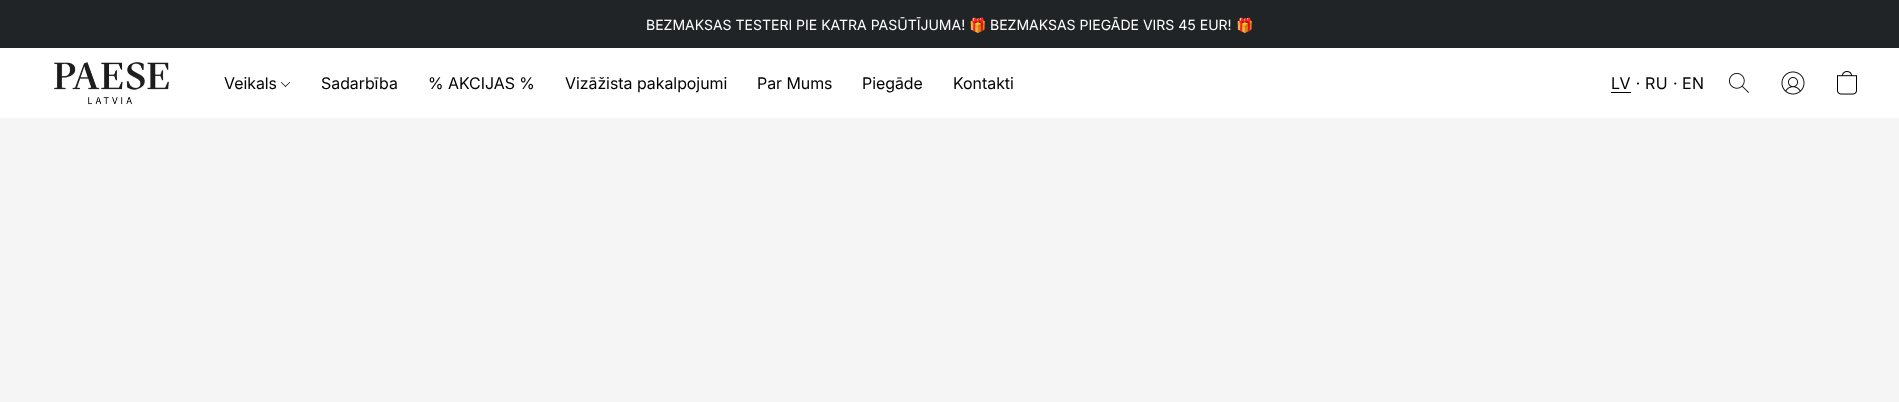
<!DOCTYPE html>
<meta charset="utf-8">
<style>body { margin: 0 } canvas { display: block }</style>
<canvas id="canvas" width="1899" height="402"></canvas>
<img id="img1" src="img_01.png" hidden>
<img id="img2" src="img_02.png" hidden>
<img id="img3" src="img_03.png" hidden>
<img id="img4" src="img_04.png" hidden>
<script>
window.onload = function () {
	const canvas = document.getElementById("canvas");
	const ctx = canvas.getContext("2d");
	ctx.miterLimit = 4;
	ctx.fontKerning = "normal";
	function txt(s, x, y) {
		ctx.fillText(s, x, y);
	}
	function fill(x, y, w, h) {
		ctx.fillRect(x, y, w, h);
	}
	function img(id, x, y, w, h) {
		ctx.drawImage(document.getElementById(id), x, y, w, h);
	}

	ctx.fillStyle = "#F5F5F5";
	fill(0, 0, 1899, 402);
	ctx.fillStyle = "#212427";
	fill(0, 0, 1899, 48);
	ctx.fillStyle = "#FFFFFF";
	fill(0, 48, 1899, 70);
	img("img1", 54, 62, 115, 44);
	ctx.fillStyle = "#000000";
	ctx.beginPath();
	ctx.moveTo(285, 86.5);
	ctx.lineTo(289.5, 82);
	ctx.lineTo(290, 82.5);
	ctx.lineTo(285.5, 87);
	ctx.closePath();
	ctx.fill();
	ctx.beginPath();
	ctx.moveTo(281, 82.5);
	ctx.lineTo(281.5, 82);
	ctx.lineTo(286, 86.5);
	ctx.lineTo(285.5, 87);
	ctx.closePath();
	ctx.fill();
	fill(1611, 92, 20, 1);
	img("img2", 1729, 73, 20, 20);
	img("img3", 1781, 71, 24, 24);
	img("img4", 1837, 71, 20, 24);
	ctx.font = "14px Inter";
	ctx.fillStyle = "#FFFFFF";
	txt("BEZMAKSAS TESTERI PIE KATRA PASŪTĪJUMA!", 646, 30);
	ctx.font = "14px Noto Color Emoji";
	txt("🎁", 969, 30);
	ctx.font = "14px Inter";
	txt("BEZMAKSAS PIEGĀDE VIRS 45 EUR!", 990, 30);
	ctx.font = "14px Noto Color Emoji";
	txt("🎁", 1236, 30);
	ctx.font = "16px 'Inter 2'";
	ctx.fillStyle = "#000000";
	txt("Veikals", 224, 89);
	txt("Sadarbība", 321, 89);
	txt("% AKCIJAS %", 428, 89);
	txt("Vizāžista pakalpojumi", 565, 89);
	txt("Par Mums", 757, 89);
	txt("Piegāde", 862, 89);
	txt("Kontakti", 953, 89);
	ctx.letterSpacing = "0.5px";
	txt("LV ·", 1611, 89);
	txt("RU ·", 1645, 89);
	txt("EN", 1682, 89);
};
</script>
